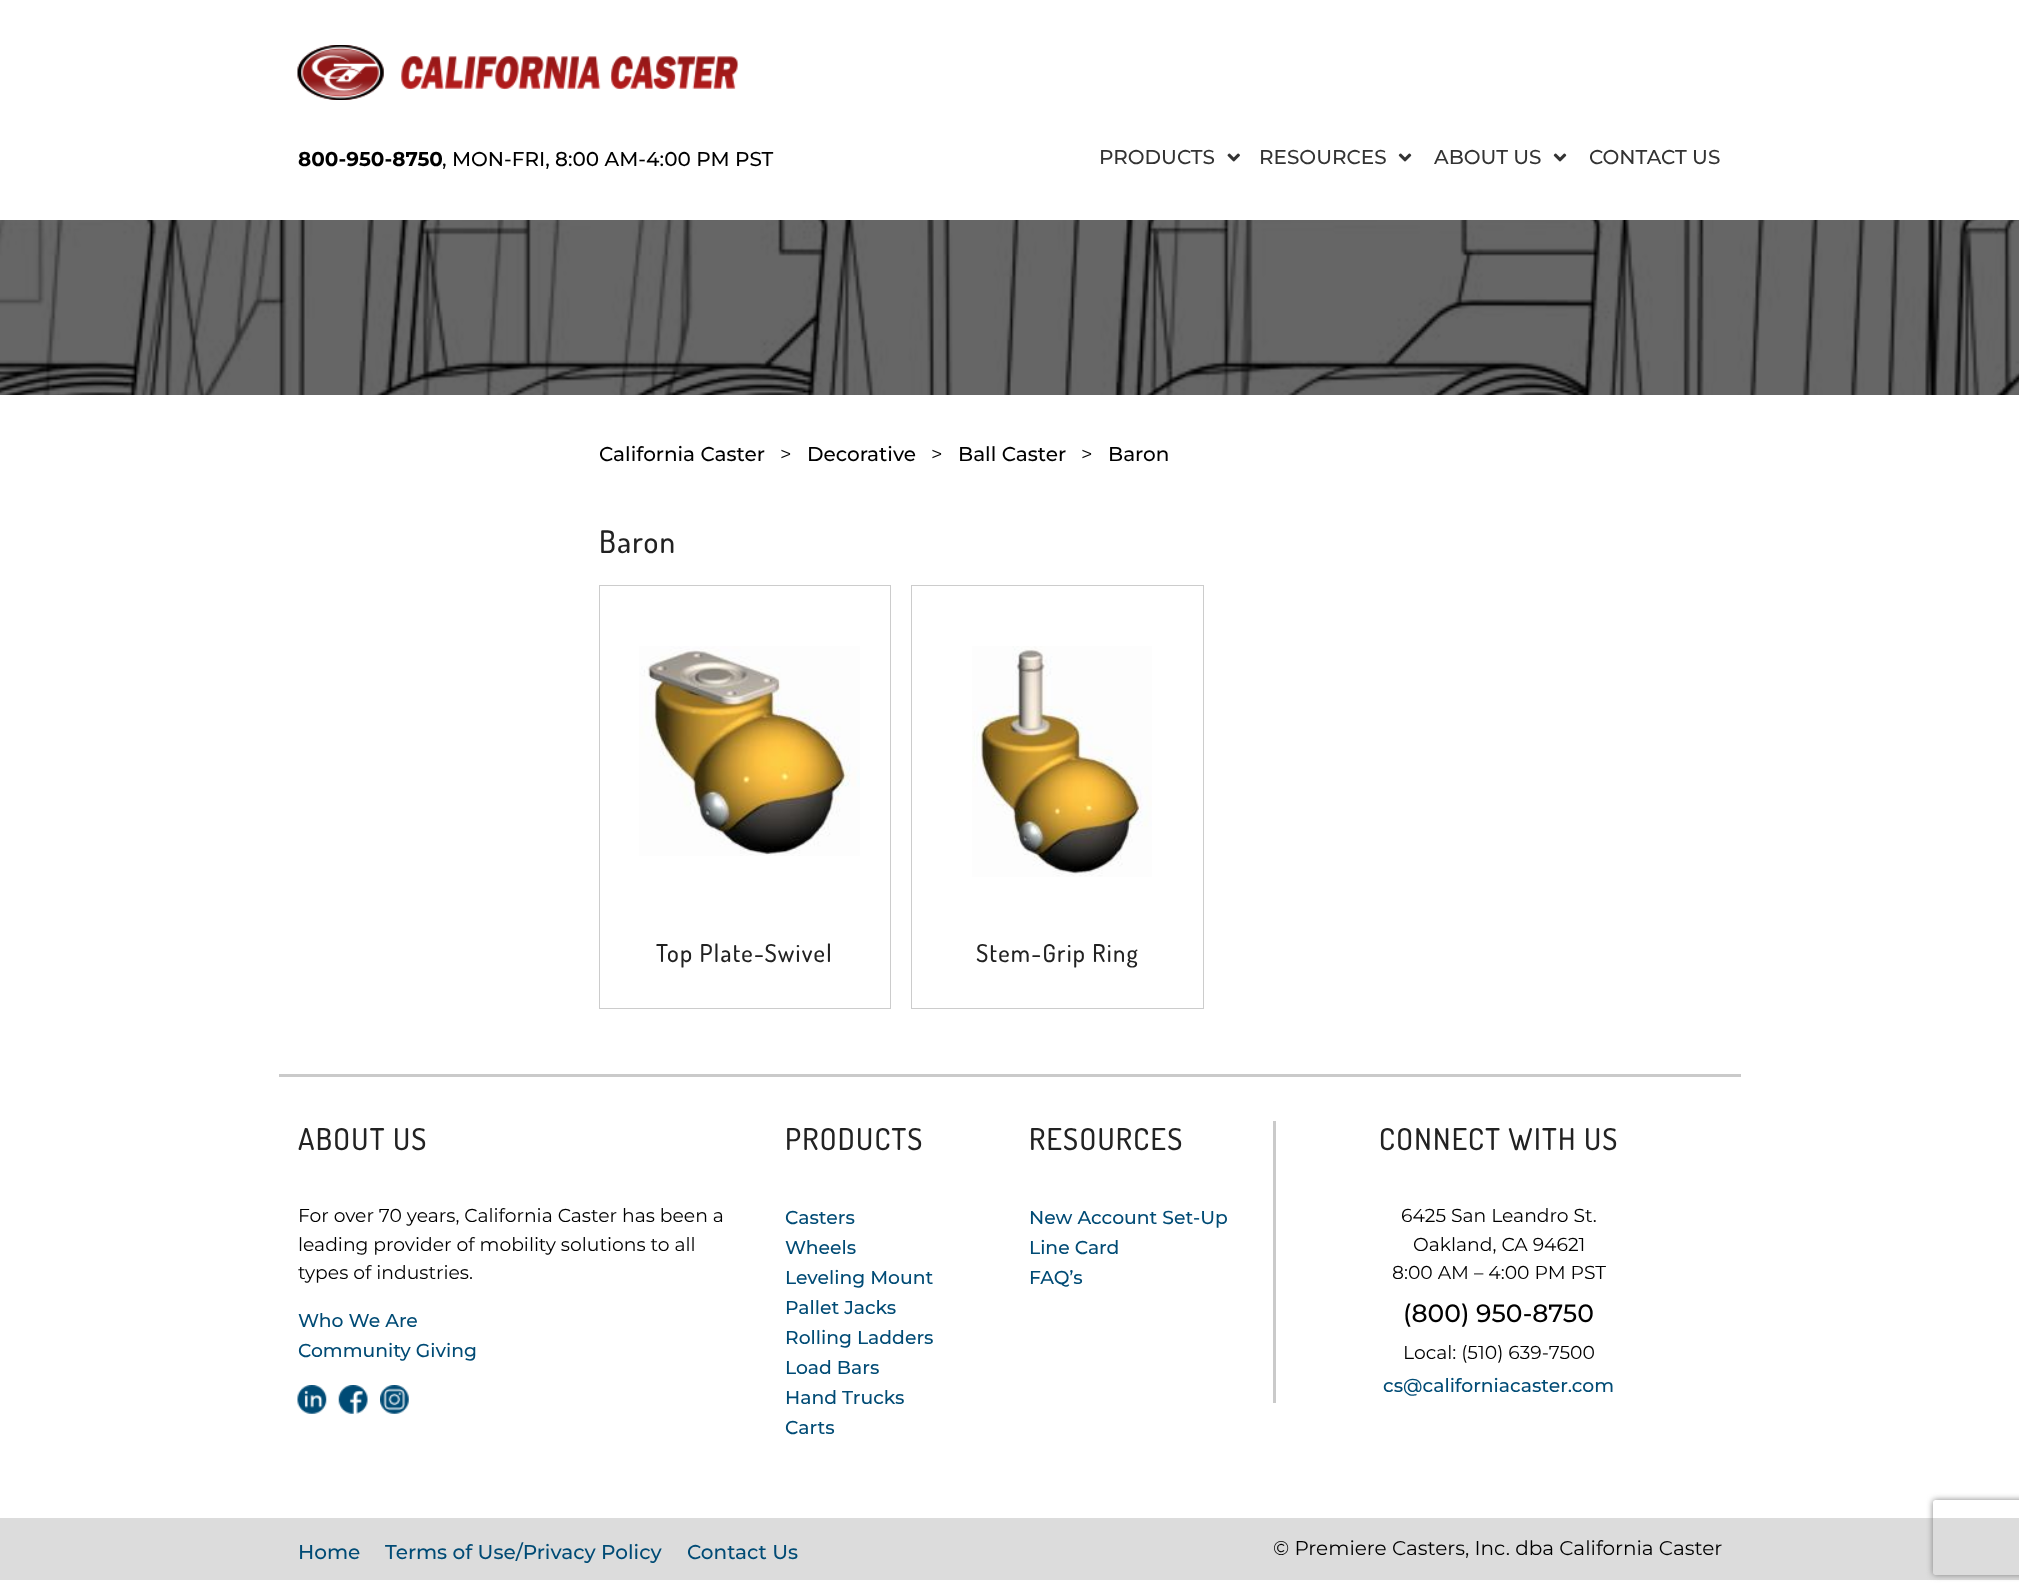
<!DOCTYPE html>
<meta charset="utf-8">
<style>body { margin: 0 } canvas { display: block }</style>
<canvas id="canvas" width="2019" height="1592"></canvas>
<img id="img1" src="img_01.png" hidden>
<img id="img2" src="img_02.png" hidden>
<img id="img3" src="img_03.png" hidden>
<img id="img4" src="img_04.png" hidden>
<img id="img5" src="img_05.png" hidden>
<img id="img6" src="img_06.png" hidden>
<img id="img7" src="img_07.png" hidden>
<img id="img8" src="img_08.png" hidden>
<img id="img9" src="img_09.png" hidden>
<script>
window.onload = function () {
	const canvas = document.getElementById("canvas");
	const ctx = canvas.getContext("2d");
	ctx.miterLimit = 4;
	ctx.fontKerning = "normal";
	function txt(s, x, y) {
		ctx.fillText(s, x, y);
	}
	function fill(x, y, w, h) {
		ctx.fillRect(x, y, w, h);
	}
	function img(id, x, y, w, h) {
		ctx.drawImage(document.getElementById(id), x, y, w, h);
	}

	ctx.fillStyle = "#FFFFFF";
	fill(0, 0, 2019, 1592);
	img("img1", 297, 45, 442, 55);
	img("img2", 1227, 153, 13, 9);
	img("img3", 1398, 153, 14, 9);
	img("img3", 1553, 153, 14, 9);
	img("img4", 0, 220, 2019, 175);
	ctx.strokeStyle = "#CCCCCC";
	ctx.strokeRect(599.5, 585.5, 291, 423);
	img("img5", 639, 646, 221, 210);
	ctx.strokeRect(911.5, 585.5, 292, 423);
	img("img6", 972, 646, 180, 231);
	ctx.fillStyle = "#CACACA";
	fill(279, 1074, 1462, 3);
	img("img7", 297, 1385, 30, 29);
	img("img8", 338, 1385, 30, 29);
	img("img9", 380, 1385, 29, 29);
	fill(1273, 1121, 3, 282);
	ctx.fillStyle = "#DCDCDC";
	fill(0, 1518, 2019, 62);
	ctx.save();
	ctx.beginPath();
	ctx.moveTo(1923, 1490);
	ctx.lineTo(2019, 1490);
	ctx.lineTo(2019, 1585);
	ctx.lineTo(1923, 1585);
	ctx.closePath();
	ctx.moveTo(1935.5, 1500);
	ctx.lineTo(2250.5, 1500);
	ctx.bezierCurveTo(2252, 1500, 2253, 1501, 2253, 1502.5);
	ctx.lineTo(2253, 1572.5);
	ctx.bezierCurveTo(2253, 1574, 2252, 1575, 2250.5, 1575);
	ctx.lineTo(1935.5, 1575);
	ctx.bezierCurveTo(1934, 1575, 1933, 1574, 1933, 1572.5);
	ctx.lineTo(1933, 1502.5);
	ctx.bezierCurveTo(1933, 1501, 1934, 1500, 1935.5, 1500);
	ctx.closePath();
	ctx.clip("evenodd");
	ctx.fillStyle = "#808080";
	ctx.filter = "blur(3px)";
	ctx.beginPath();
	ctx.roundRect(1933, 1500, 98, 75, 2.5);
	ctx.fill();
	ctx.filter = "none";
	ctx.restore();
	ctx.font = "bold 20px Montserrat";
	ctx.fillStyle = "#000000";
	txt("800-950-8750", 298, 166);
	ctx.font = "500 20px Montserrat";
	txt(", MON-FRI, 8:00 AM-4:00 PM PST", 442, 166);
	ctx.fillStyle = "#333333";
	txt("PRODUCTS", 1099, 164);
	txt("RESOURCES", 1259, 164);
	txt("ABOUT US", 1434, 164);
	txt("CONTACT US", 1589, 164);
	ctx.fillStyle = "#000000";
	txt("California Caster", 599, 461);
	ctx.font = "20px Montserrat";
	txt(">", 780, 461);
	ctx.font = "500 20px Montserrat";
	txt("Decorative", 807, 461);
	ctx.font = "20px Montserrat";
	txt(">", 931, 461);
	ctx.font = "500 20px Montserrat";
	txt("Ball Caster", 958, 461);
	ctx.font = "20px Montserrat";
	txt(">", 1081, 461);
	ctx.font = "500 20px Montserrat";
	txt("Baron", 1108, 461);
	ctx.letterSpacing = "1.25px";
	ctx.font = "500 31px Dosis";
	ctx.fillStyle = "#222222";
	txt("Baron", 599, 553);
	ctx.font = "500 24.5px Dosis";
	txt("Top Plate-Swivel", 656, 962);
	txt("Stem-Grip Ring", 976, 962);
	ctx.font = "500 30px Dosis";
	txt("ABOUT US", 298, 1150);
	ctx.letterSpacing = "0px";
	ctx.font = "18.75px Montserrat";
	ctx.fillStyle = "#000000";
	txt("For over 70 years, California Caster has been a", 298, 1222);
	txt("leading provider of mobility solutions to all", 298, 1251);
	txt("types of industries.", 298, 1279);
	ctx.font = "500 18.75px Montserrat";
	ctx.fillStyle = "#004B75";
	txt("Who We Are", 298, 1327);
	txt("Community Giving", 298, 1357);
	ctx.letterSpacing = "1.25px";
	ctx.font = "500 30px Dosis";
	ctx.fillStyle = "#222222";
	txt("PRODUCTS", 785, 1150);
	ctx.letterSpacing = "0px";
	ctx.font = "500 18.75px Montserrat";
	ctx.fillStyle = "#004B75";
	txt("Casters", 785, 1224);
	txt("Wheels", 785, 1254);
	txt("Leveling Mount", 785, 1284);
	txt("Pallet Jacks", 785, 1314);
	txt("Rolling Ladders", 785, 1344);
	txt("Load Bars", 785, 1374);
	txt("Hand Trucks", 785, 1404);
	txt("Carts", 785, 1434);
	ctx.letterSpacing = "1.25px";
	ctx.font = "500 30px Dosis";
	ctx.fillStyle = "#222222";
	txt("RESOURCES", 1029, 1150);
	ctx.letterSpacing = "0px";
	ctx.font = "500 18.75px Montserrat";
	ctx.fillStyle = "#004B75";
	txt("New Account Set-Up", 1029, 1224);
	txt("Line Card", 1029, 1254);
	txt("FAQ’s", 1029, 1284);
	ctx.letterSpacing = "1.25px";
	ctx.font = "500 30px Dosis";
	ctx.fillStyle = "#222222";
	txt("CONNECT WITH US", 1379, 1150);
	ctx.letterSpacing = "0px";
	ctx.font = "18.75px Montserrat";
	ctx.fillStyle = "#000000";
	txt("6425 San Leandro St.", 1401, 1222);
	txt("Oakland, CA 94621", 1413, 1251);
	txt("8:00 AM – 4:00 PM PST", 1392, 1279);
	ctx.font = "500 25px Montserrat";
	txt("(800) 950-8750", 1403, 1322);
	ctx.font = "18.75px Montserrat";
	txt("Local: (510) 639-7500", 1403, 1359);
	ctx.font = "500 18.75px Montserrat";
	ctx.fillStyle = "#004B75";
	txt("cs@californiacaster.com", 1383, 1392);
	ctx.font = "500 20px Montserrat";
	txt("Home", 298, 1559);
	txt("Terms of Use/Privacy Policy", 385, 1559);
	txt("Contact Us", 687, 1559);
	ctx.font = "20px Montserrat";
	ctx.fillStyle = "#000000";
	txt("© Premiere Casters, Inc. dba California Caster", 1273, 1555);
};
</script>
